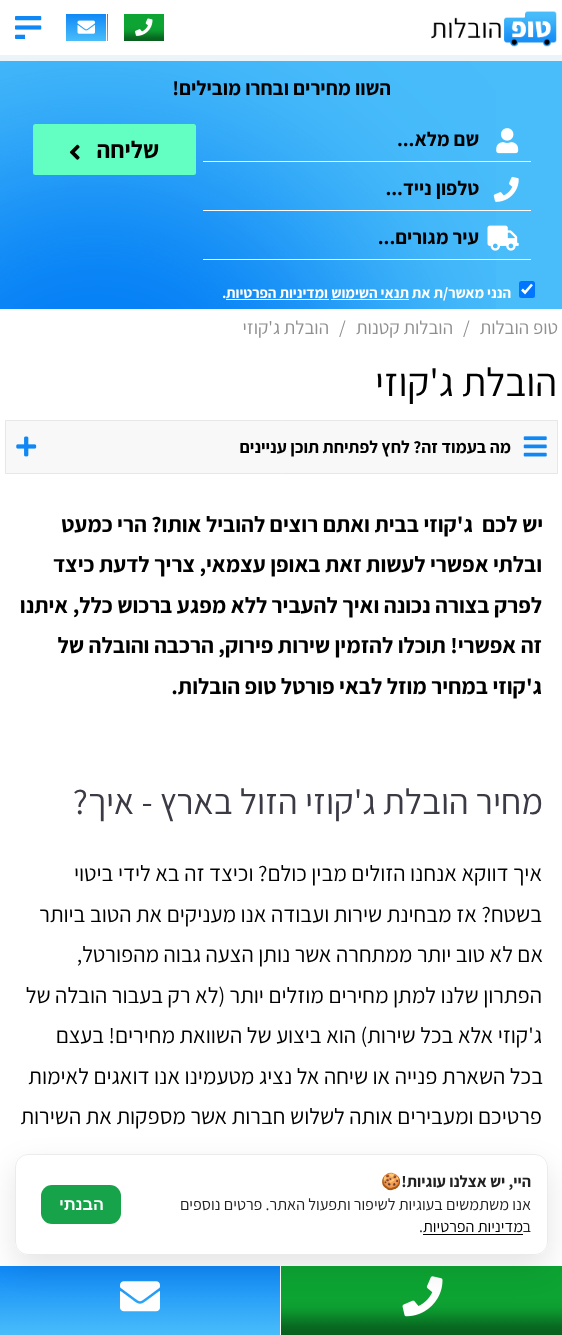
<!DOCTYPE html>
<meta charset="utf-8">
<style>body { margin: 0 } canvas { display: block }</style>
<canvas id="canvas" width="562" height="1335"></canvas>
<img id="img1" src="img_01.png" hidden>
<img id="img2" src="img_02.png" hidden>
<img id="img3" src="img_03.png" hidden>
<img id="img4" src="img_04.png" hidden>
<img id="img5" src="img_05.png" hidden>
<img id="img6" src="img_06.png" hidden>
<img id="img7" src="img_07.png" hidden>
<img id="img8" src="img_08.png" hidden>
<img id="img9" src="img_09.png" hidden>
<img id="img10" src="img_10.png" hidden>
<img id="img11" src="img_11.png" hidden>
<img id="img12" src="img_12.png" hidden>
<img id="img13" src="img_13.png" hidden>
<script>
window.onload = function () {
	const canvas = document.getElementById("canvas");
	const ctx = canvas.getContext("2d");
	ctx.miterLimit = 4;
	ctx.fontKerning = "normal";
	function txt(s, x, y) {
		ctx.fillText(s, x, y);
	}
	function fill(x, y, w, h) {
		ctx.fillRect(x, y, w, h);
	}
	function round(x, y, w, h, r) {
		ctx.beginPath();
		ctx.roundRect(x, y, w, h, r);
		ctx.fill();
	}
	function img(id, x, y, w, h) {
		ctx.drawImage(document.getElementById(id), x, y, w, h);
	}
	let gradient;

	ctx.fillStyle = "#EAF4F9";
	fill(0, 0, 562, 1335);
	ctx.fillStyle = "#FFFFFF";
	fill(0, 0, 562, 55);
	img("img1", 431, 11, 126, 36);
	gradient = ctx.createLinearGradient(144, 14, 144, 41);
	gradient.addColorStop(0, "#0DA433");
	gradient.addColorStop(0.46, "#0DA433");
	gradient.addColorStop(0.59, "#0D9F31");
	gradient.addColorStop(0.68, "#0C912D");
	gradient.addColorStop(0.88, "#086921");
	gradient.addColorStop(1, "#085F1E");
	ctx.fillStyle = gradient;
	fill(124, 14, 40, 27);
	img("img2", 135, 18, 18, 18);
	gradient = ctx.createLinearGradient(86, 14, 86, 41);
	gradient.addColorStop(0, "#0F88F6");
	gradient.addColorStop(1, "#49BDFA");
	ctx.fillStyle = gradient;
	fill(66, 14, 42, 27);
	ctx.fillStyle = "#FFFFFF";
	fill(106, 14, 1, 27);
	img("img3", 77, 20, 18, 14);
	img("img4", 15, 16, 27, 23);
	fill(25, 34, 17, 5);
	ctx.fillStyle = "#49BDFA";
	fill(0, 61, 562, 248);
	img("img5", 0, 61, 496, 248);
	img("img6", 496, 128, 23, 26);
	ctx.fillStyle = "#FFFFFF";
	fill(203, 161, 328, 1);
	img("img7", 493, 176, 26, 26);
	fill(203, 210, 328, 1);
	img("img8", 487, 225, 32, 26);
	fill(203, 259, 328, 1);
	ctx.fillStyle = "#63FFC2";
	round(33, 124, 163, 51, 2.5);
	img("img9", 69, 144, 11, 16);
	ctx.fillStyle = "#0075FF";
	round(519, 281, 16, 17, 2.5);
	ctx.beginPath();
	ctx.moveTo(522, 289.5);
	ctx.lineTo(525, 292.5);
	ctx.lineTo(532, 284.5);
	ctx.strokeStyle = "#FFFFFF";
	ctx.lineWidth = 2.6;
	ctx.stroke();
	ctx.fillStyle = "#FFFFFF";
	fill(331, 299, 78, 1);
	fill(226, 299, 103, 1);
	fill(0, 309, 562, 957);
	ctx.fillStyle = "#F8F8F8";
	ctx.beginPath();
	ctx.rect(5.5, 420.5, 552, 53);
	ctx.fill();
	ctx.strokeStyle = "#E7E7E7";
	ctx.lineWidth = 1;
	ctx.stroke();
	img("img10", 523, 436, 24, 21);
	img("img11", 16, 436, 21, 21);
	gradient = ctx.createLinearGradient(422, 1266, 422, 1335);
	gradient.addColorStop(0, "#0DA433");
	gradient.addColorStop(0.46, "#0DA433");
	gradient.addColorStop(0.59, "#0D9F31");
	gradient.addColorStop(0.68, "#0C912D");
	gradient.addColorStop(0.88, "#086921");
	gradient.addColorStop(1, "#085F1E");
	ctx.fillStyle = gradient;
	fill(281, 1266, 281, 69);
	img("img12", 402, 1276, 41, 41);
	gradient = ctx.createLinearGradient(140, 1266, 140, 1335);
	gradient.addColorStop(0, "#0F88F6");
	gradient.addColorStop(1, "#49BDFA");
	ctx.fillStyle = gradient;
	fill(0, 1266, 280, 69);
	ctx.fillStyle = "#FFFFFF";
	fill(280, 1266, 1, 69);
	img("img13", 120, 1281, 40, 31);
	ctx.save();
	ctx.beginPath();
	ctx.moveTo(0, 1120);
	ctx.lineTo(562, 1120);
	ctx.lineTo(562, 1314);
	ctx.lineTo(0, 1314);
	ctx.closePath();
	ctx.moveTo(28, 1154);
	ctx.lineTo(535, 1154);
	ctx.bezierCurveTo(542, 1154, 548, 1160, 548, 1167);
	ctx.lineTo(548, 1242);
	ctx.bezierCurveTo(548, 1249, 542, 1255, 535, 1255);
	ctx.lineTo(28, 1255);
	ctx.bezierCurveTo(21, 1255, 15, 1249, 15, 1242);
	ctx.lineTo(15, 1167);
	ctx.bezierCurveTo(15, 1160, 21, 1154, 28, 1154);
	ctx.closePath();
	ctx.clip("evenodd");
	ctx.fillStyle = "rgba(0, 0, 0, 0.1)";
	ctx.filter = "blur(15px)";
	ctx.beginPath();
	ctx.roundRect(15, 1166, 533, 102, 13);
	ctx.fill();
	ctx.filter = "none";
	ctx.restore();
	ctx.fillStyle = "rgba(255, 255, 255, 0.96)";
	round(15, 1154, 533, 101, 13);
	ctx.beginPath();
	ctx.roundRect(15.5, 1154.5, 532, 100, 12.5);
	ctx.strokeStyle = "rgba(0, 0, 0, 0.08)";
	ctx.stroke();
	ctx.fillStyle = "#000000";
	fill(423, 1234, 100, 1);
	ctx.fillStyle = "#17A34A";
	round(41, 1185, 80, 39, 11);
	ctx.direction = "rtl";
	ctx.font = "bold 20.4px Assistant";
	ctx.fillStyle = "#000000";
	txt("השוו מחירים ובחרו מובילים!", 391, 95);
	ctx.font = "bold 20px Assistant";
	txt("שם מלא...", 479, 146);
	txt("טלפון נייד...", 479, 195);
	txt("עיר מגורים...", 479, 244);
	ctx.font = "bold 24px Assistant";
	txt("שליחה", 159, 158);
	ctx.font = "bold 15px Assistant";
	ctx.fillStyle = "#FFFFFF";
	txt("הנני מאשר/ת את", 511, 298);
	txt("תנאי השימוש", 409, 298);
	txt("ומדיניות הפרטיות", 328, 298);
	ctx.direction = "ltr";
	txt(".", 222, 298);
	ctx.direction = "rtl";
	ctx.font = "19px Assistant";
	ctx.fillStyle = "#8F8F8F";
	txt("טופ הובלות", 558, 334);
	ctx.direction = "ltr";
	txt("/", 463, 334);
	ctx.direction = "rtl";
	txt("הובלות קטנות", 453, 334);
	ctx.direction = "ltr";
	txt("/", 339, 334);
	ctx.direction = "rtl";
	txt("הובלת ג'קוזי", 329, 334);
	ctx.font = "40px Assistant";
	ctx.fillStyle = "#000000";
	txt("הובלת ג'קוזי", 557, 396);
	ctx.font = "bold 17.5px Assistant";
	txt("מה בעמוד זה? לחץ לפתיחת תוכן עניינים", 511, 453);
	ctx.font = "bold 22.5px Assistant";
	txt("יש לכם  ג'קוזי בבית ואתם רוצים להוביל אותו? הרי כמעט", 543, 532);
	txt("ובלתי אפשרי לעשות זאת באופן עצמאי, צריך לדעת כיצד", 542, 572);
	txt("לפרק בצורה נכונה ואיך להעביר ללא מפגע ברכוש כלל, איתנו", 542, 613);
	txt("זה אפשרי! תוכלו להזמין שירות פירוק, הרכבה והובלה של", 542, 653);
	txt("ג'קוזי במחיר מוזל לבאי פורטל טופ הובלות.", 542, 694);
	ctx.font = "36px Assistant";
	ctx.fillStyle = "#3B3A45";
	txt("מחיר הובלת ג'קוזי הזול בארץ - איך?", 543, 814);
	ctx.font = "22.5px Assistant";
	ctx.fillStyle = "#000000";
	txt("איך דווקא אנחנו הזולים מבין כולם? וכיצד זה בא לידי ביטוי", 542, 881);
	txt("בשטח? אז מבחינת שירות ועבודה אנו מעניקים את הטוב ביותר", 542, 922);
	txt("אם לא טוב יותר ממתחרה אשר נותן הצעה גבוה מהפורטל,", 543, 962);
	txt("הפתרון שלנו למתן מחירים מוזלים יותר (לא רק בעבור הובלה של", 542, 1003);
	txt("ג'קוזי אלא בכל שירות) הוא ביצוע של השוואת מחירים! בעצם", 542, 1043);
	txt("בכל השארת פנייה או שיחה אל נציג מטעמינו אנו דואגים לאימות", 543, 1084);
	txt("פרטיכם ומעבירים אותה לשלוש חברות אשר מספקות את השירות", 542, 1124);
	ctx.font = "bold 16.25px Assistant";
	ctx.fillStyle = "#222222";
	txt("היי, יש אצלנו עוגיות!", 531, 1187);
	ctx.font = "bold 16.25px Noto Color Emoji";
	txt("🍪", 402, 1187);
	ctx.font = "16.25px Assistant";
	txt("אנו משתמשים בעוגיות לשיפור ותפעול האתר. פרטים נוספים", 531, 1210);
	txt("ב", 531, 1232);
	ctx.fillStyle = "#000000";
	txt("מדיניות הפרטיות", 523, 1232);
	ctx.direction = "ltr";
	ctx.fillStyle = "#222222";
	txt(".", 419, 1232);
	ctx.direction = "rtl";
	ctx.font = "bold 16.25px Liberation Sans";
	ctx.fillStyle = "#FFFFFF";
	txt("הבנתי", 104, 1210);
};
</script>
